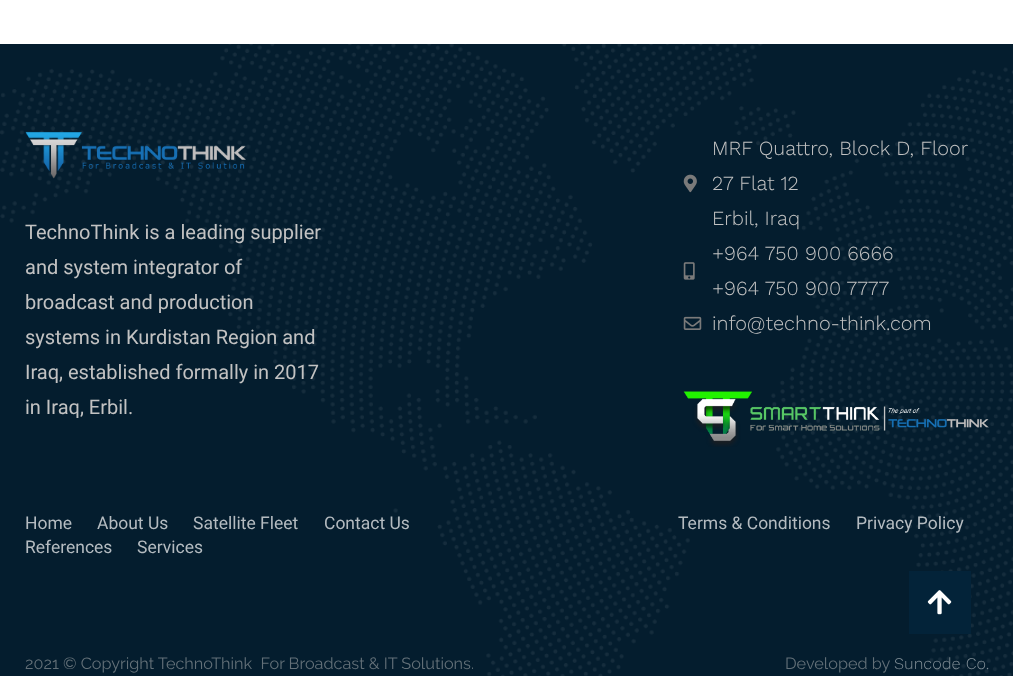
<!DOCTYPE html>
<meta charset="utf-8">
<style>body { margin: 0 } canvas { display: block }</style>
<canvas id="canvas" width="1013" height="676"></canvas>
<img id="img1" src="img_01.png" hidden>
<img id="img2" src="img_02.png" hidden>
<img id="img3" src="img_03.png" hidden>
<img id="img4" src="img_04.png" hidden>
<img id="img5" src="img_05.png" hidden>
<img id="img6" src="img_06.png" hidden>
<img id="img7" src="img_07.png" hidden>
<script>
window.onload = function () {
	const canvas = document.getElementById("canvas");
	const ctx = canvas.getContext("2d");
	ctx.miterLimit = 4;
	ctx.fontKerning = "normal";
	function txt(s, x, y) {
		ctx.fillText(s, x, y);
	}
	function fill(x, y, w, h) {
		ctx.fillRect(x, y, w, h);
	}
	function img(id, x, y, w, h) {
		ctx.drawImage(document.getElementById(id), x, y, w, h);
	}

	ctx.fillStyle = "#FFFFFF";
	fill(0, 0, 1013, 676);
	ctx.fillStyle = "#041D2E";
	fill(0, 44, 1013, 632);
	img("img1", 0, 44, 1013, 632);
	img("img2", 25, 131, 221, 48);
	img("img3", 683, 174, 14, 19);
	img("img4", 683, 262, 12, 18);
	img("img5", 683, 316, 19, 14);
	img("img6", 683, 391, 306, 56);
	ctx.fillStyle = "#032339";
	fill(909, 571, 62, 63);
	img("img7", 927, 590, 25, 25);
	ctx.font = "20px Roboto";
	ctx.fillStyle = "#C2C2C2";
	txt("TechnoThink is a leading supplier", 25, 239);
	txt("and system integrator of", 25, 274);
	txt("broadcast and production", 25, 309);
	txt("systems in Kurdistan Region and", 25, 344);
	txt("Iraq, established formally in 2017", 25, 379);
	txt("in Iraq, Erbil.", 25, 414);
	ctx.font = "300 20px Work Sans";
	txt("MRF Quattro, Block D, Floor", 712, 155);
	txt("27 Flat 12", 712, 190);
	txt("Erbil, Iraq", 712, 225);
	txt("+964 750 900 6666", 712, 260);
	txt("+964 750 900 7777", 712, 295);
	txt("info@techno-think.com", 712, 330);
	ctx.font = "17.5px Roboto";
	ctx.fillStyle = "#B4BBC0";
	txt("Home", 25, 529);
	txt("About Us", 97, 529);
	txt("Satellite Fleet", 193, 529);
	txt("Contact Us", 324, 529);
	txt("References", 25, 553);
	txt("Services", 137, 553);
	txt("Terms & Conditions", 678, 529);
	txt("Privacy Policy", 856, 529);
	ctx.font = "16.25px Raleway";
	ctx.fillStyle = "#637078";
	txt("2021 © Copyright TechnoThink  For Broadcast & IT Solutions.", 25, 669);
	txt("Developed by", 785, 669);
	ctx.font = "300 16.25px Work Sans";
	ctx.fillStyle = "#828F97";
	txt("Suncode Co.", 894, 669);
};
</script>
